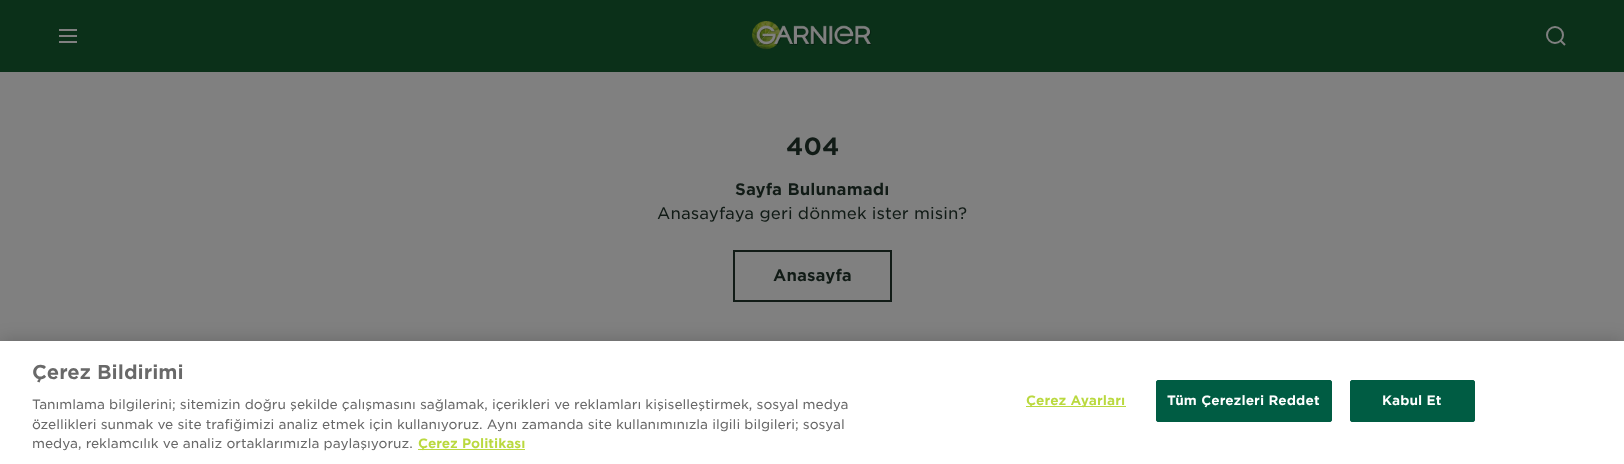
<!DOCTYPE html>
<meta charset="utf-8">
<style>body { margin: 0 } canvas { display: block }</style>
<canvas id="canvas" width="1624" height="464"></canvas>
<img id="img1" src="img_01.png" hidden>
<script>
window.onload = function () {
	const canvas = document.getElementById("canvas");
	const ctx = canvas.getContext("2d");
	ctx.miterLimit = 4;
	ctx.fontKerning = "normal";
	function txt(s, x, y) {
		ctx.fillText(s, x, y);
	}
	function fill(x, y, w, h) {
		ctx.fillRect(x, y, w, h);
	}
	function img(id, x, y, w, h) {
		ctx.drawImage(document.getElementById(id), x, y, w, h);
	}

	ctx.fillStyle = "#808080";
	fill(0, 0, 1624, 464);
	ctx.fillStyle = "#0B3019";
	fill(0, 0, 1624, 72);
	ctx.fillStyle = "#808080";
	fill(59, 29, 18, 2);
	fill(59, 35, 18, 2);
	fill(59, 41, 18, 2);
	img("img1", 752, 21, 120, 29);
	ctx.beginPath();
	ctx.arc(1555, 35, 8, 0, Math.PI * 2);
	ctx.strokeStyle = "#808080";
	ctx.lineWidth = 2;
	ctx.stroke();
	ctx.beginPath();
	ctx.moveTo(1560.5, 40.5);
	ctx.lineTo(1565, 45);
	ctx.lineJoin = "round";
	ctx.stroke();
	ctx.strokeStyle = "#111B16";
	ctx.lineJoin = "miter";
	ctx.strokeRect(734, 251, 157, 50);
	ctx.fillStyle = "rgba(0, 0, 0, 0.2)";
	ctx.filter = "blur(9px)";
	ctx.beginPath();
	ctx.rect(0, 341, 1624, 123);
	ctx.fill();
	ctx.filter = "none";
	ctx.fillStyle = "#FFFFFF";
	fill(0, 341, 1624, 123);
	ctx.fillStyle = "#BAD93F";
	fill(418, 449, 107, 1);
	fill(1026, 406, 100, 1);
	ctx.fillStyle = "#005C43";
	ctx.beginPath();
	ctx.roundRect(1156.5, 380.5, 175, 41, 1.5);
	ctx.fill();
	ctx.strokeStyle = "#005C43";
	ctx.lineWidth = 1;
	ctx.stroke();
	ctx.beginPath();
	ctx.roundRect(1350.5, 380.5, 124, 41, 1.5);
	ctx.fill();
	ctx.stroke();
	ctx.letterSpacing = "0.1px";
	ctx.font = "24px 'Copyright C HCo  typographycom'";
	ctx.fillStyle = "#111B16";
	txt("404", 786, 155);
	ctx.font = "16px 'Copyright C HCo  typographycom'";
	txt("Sayfa Bulunamadı", 735, 195);
	ctx.font = "300 16px 'Copyright C HCo  typographycom'";
	txt("Anasayfaya geri dönmek ister misin?", 657, 219);
	ctx.font = "16px 'Copyright C HCo  typographycom'";
	txt("Anasayfa", 773, 281);
	ctx.letterSpacing = "0px";
	ctx.font = "19.25px 'Copyright C HCo  typographycom'";
	ctx.fillStyle = "#696969";
	txt("Çerez Bildirimi", 32, 379);
	ctx.font = "300 13px 'Copyright C HCo  typographycom'";
	txt("Tanımlama bilgilerini; sitemizin doğru şekilde çalışmasını sağlamak, içerikleri ve reklamları kişiselleştirmek, sosyal medya", 32, 409);
	txt("özellikleri sunmak ve site trafiğimizi analiz etmek için kullanıyoruz. Aynı zamanda site kullanımınızla ilgili bilgileri; sosyal", 32, 429);
	txt("medya, reklamcılık ve analiz ortaklarımızla paylaşıyoruz.", 32, 448);
	ctx.font = "13px 'Copyright C HCo  typographycom'";
	ctx.fillStyle = "#BAD93F";
	txt("Çerez Politikası", 418, 448);
	ctx.letterSpacing = "0.1px";
	txt("Çerez Ayarları", 1026, 405);
	ctx.fillStyle = "#FFFFFF";
	txt("Tüm Çerezleri Reddet", 1167, 405);
	txt("Kabul Et", 1382, 405);
};
</script>
